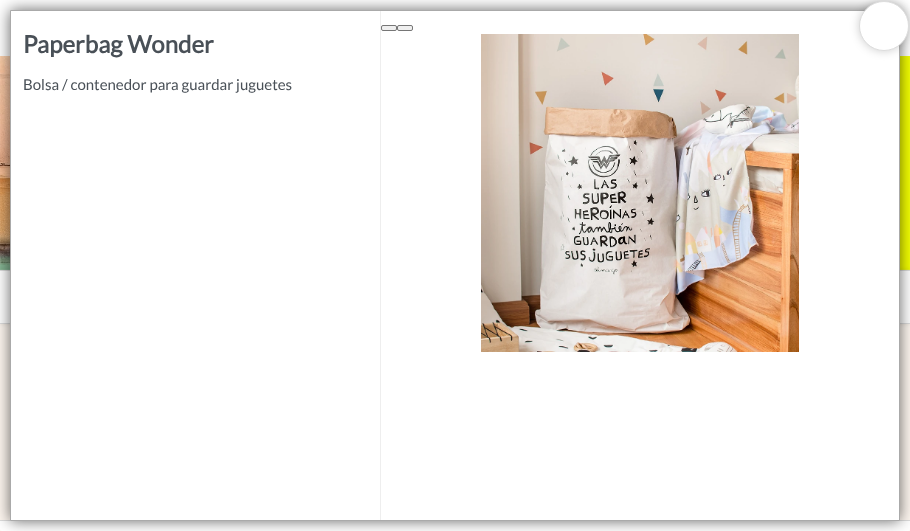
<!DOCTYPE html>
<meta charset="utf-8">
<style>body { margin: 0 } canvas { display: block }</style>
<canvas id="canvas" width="910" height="531"></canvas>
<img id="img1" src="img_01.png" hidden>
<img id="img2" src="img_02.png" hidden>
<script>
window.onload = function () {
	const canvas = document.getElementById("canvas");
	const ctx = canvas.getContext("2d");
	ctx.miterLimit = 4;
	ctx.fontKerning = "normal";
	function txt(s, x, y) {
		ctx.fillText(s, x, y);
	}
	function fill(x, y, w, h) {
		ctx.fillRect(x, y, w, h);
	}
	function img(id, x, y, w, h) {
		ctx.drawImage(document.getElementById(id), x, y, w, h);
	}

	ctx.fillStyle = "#FEF7F0";
	fill(0, 0, 910, 531);
	ctx.fillStyle = "#FFFFFF";
	fill(0, 0, 910, 56);
	img("img1", 0, 56, 910, 214);
	ctx.fillStyle = "rgba(0, 0, 0, 0.1)";
	ctx.filter = "blur(2px)";
	ctx.beginPath();
	ctx.rect(0, 270, 910, 54);
	ctx.fill();
	ctx.filter = "none";
	ctx.fillStyle = "#FFFFFF";
	fill(0, 271, 910, 52);
	ctx.fillStyle = "#DDDDDD";
	fill(0, 270, 910, 1);
	fill(0, 323, 910, 1);
	ctx.fillStyle = "#FFFFFF";
	ctx.beginPath();
	ctx.roundRect(0, 520, 910, 11, [0, 0, 2, 2]);
	ctx.fill();
	ctx.fillStyle = "#DDDDDD";
	fill(0, 520, 910, 1);
	ctx.fillStyle = "rgba(0, 0, 0, 0.6)";
	ctx.filter = "blur(7.5px)";
	ctx.beginPath();
	ctx.rect(10, 10, 890, 511);
	ctx.fill();
	ctx.filter = "none";
	ctx.fillStyle = "#FFFFFF";
	ctx.beginPath();
	ctx.rect(10.5, 10.5, 889, 510);
	ctx.fill();
	ctx.strokeStyle = "#AAAAAA";
	ctx.stroke();
	ctx.fillStyle = "#EEEEEE";
	fill(380, 11, 1, 509);
	ctx.fillStyle = "#EFEFEF";
	ctx.beginPath();
	ctx.roundRect(381.5, 25.5, 15, 5, 1.5);
	ctx.fill();
	ctx.strokeStyle = "#767676";
	ctx.stroke();
	ctx.beginPath();
	ctx.roundRect(397.5, 25.5, 15, 5, 1.5);
	ctx.fill();
	ctx.stroke();
	img("img2", 481, 34, 318, 318);
	ctx.fillStyle = "rgba(0, 0, 0, 0.2)";
	ctx.filter = "blur(5px)";
	ctx.beginPath();
	ctx.roundRect(859, 1, 50, 50, 25);
	ctx.fill();
	ctx.filter = "none";
	ctx.fillStyle = "#FFFFFF";
	ctx.beginPath();
	ctx.arc(884, 26, 24.5, 0, Math.PI * 2);
	ctx.fill();
	ctx.strokeStyle = "#DDDDDD";
	ctx.stroke();
	ctx.font = "bold 24px Lato";
	ctx.fillStyle = "#495057";
	txt("Paperbag Wonder", 23, 53);
	ctx.font = "15px Lato";
	txt("Bolsa / contenedor para guardar juguetes", 23, 90);
};
</script>
